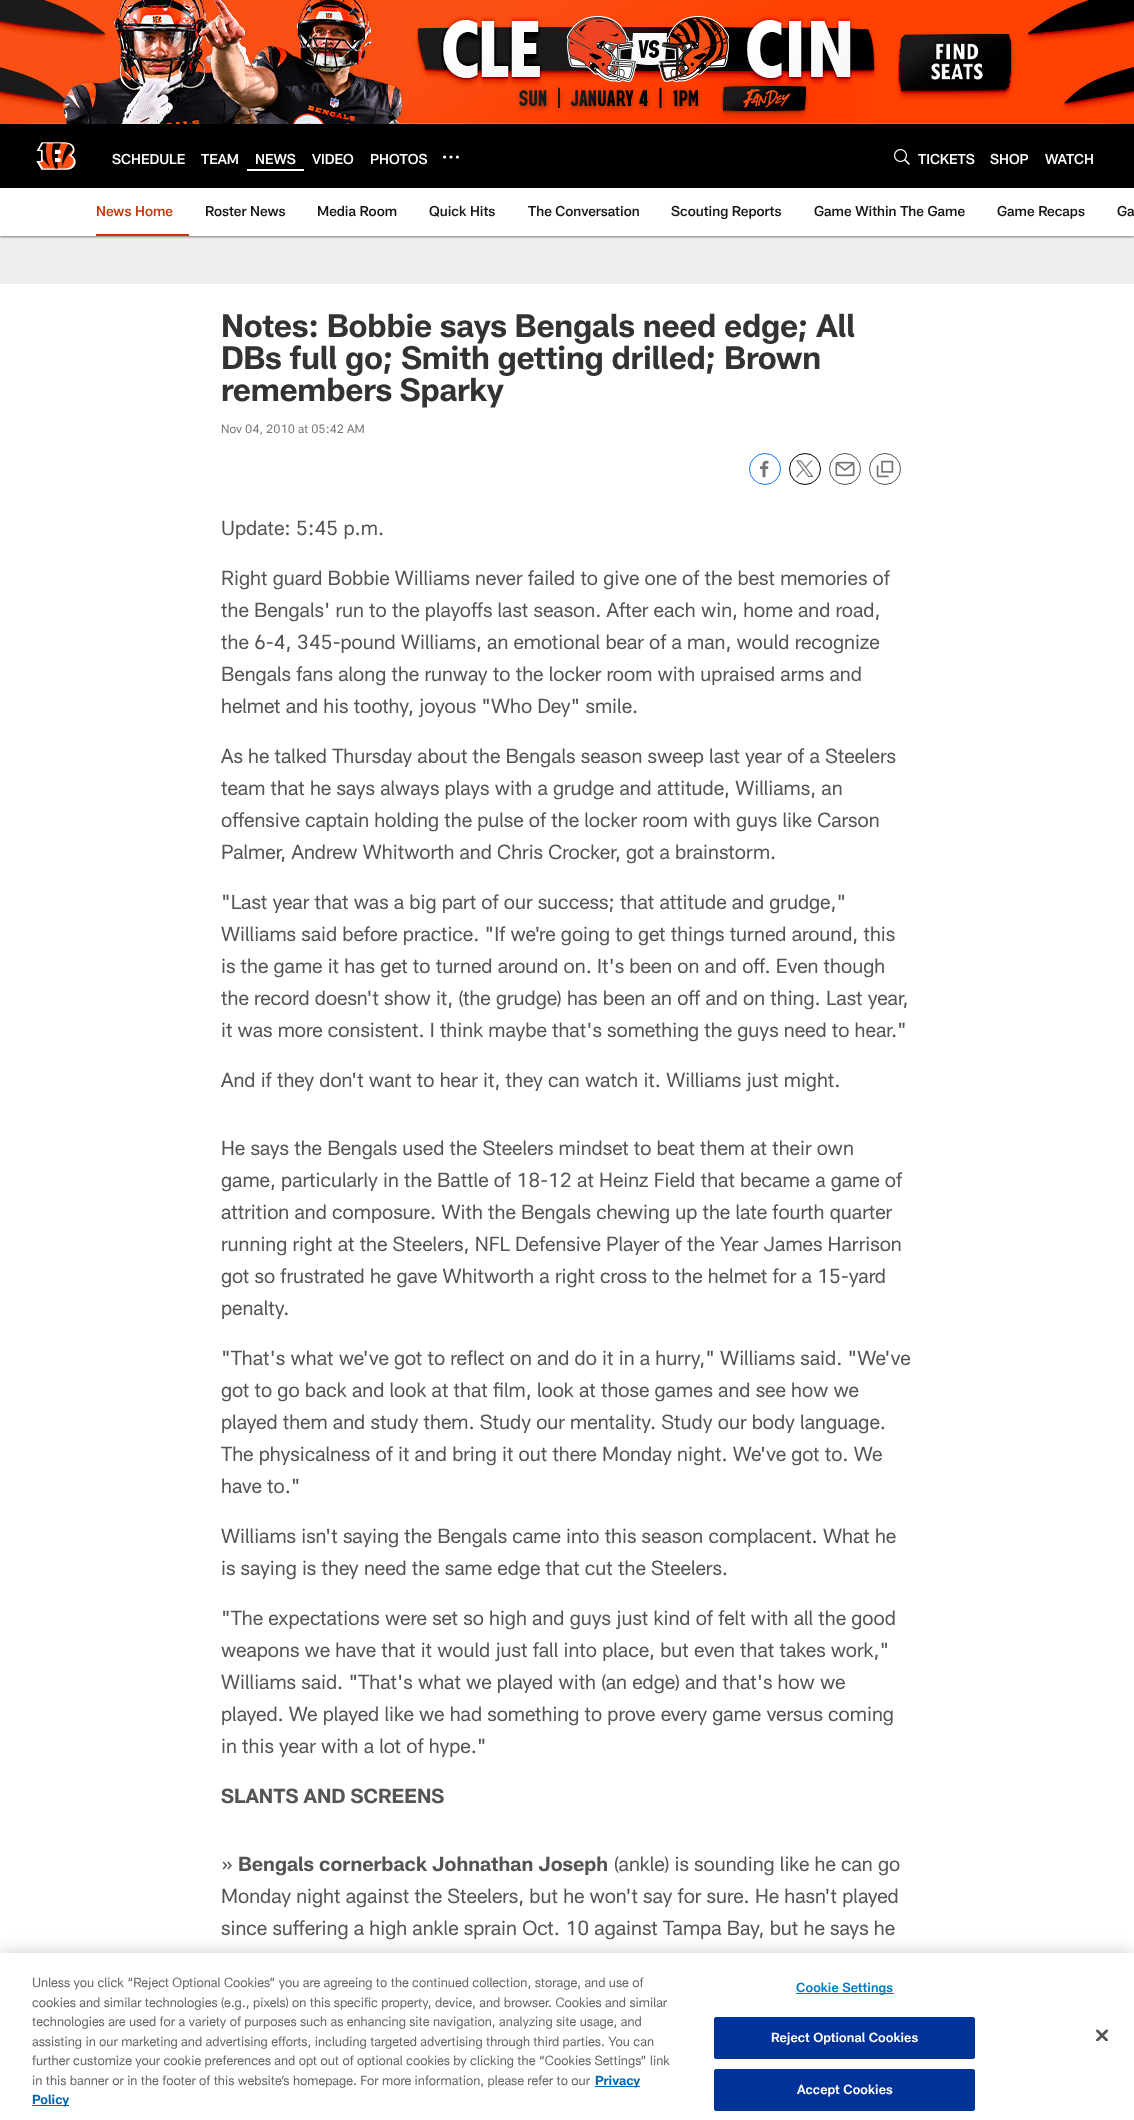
<!DOCTYPE html>
<meta charset="utf-8">
<style>body { margin: 0 } canvas { display: block }</style>
<canvas id="canvas" width="1134" height="2120"></canvas>
<img id="img1" src="img_01.png" hidden>
<img id="img2" src="img_02.png" hidden>
<img id="img3" src="img_03.png" hidden>
<img id="img4" src="img_04.png" hidden>
<img id="img5" src="img_05.png" hidden>
<img id="img6" src="img_06.png" hidden>
<img id="img7" src="img_07.png" hidden>
<img id="img8" src="img_08.png" hidden>
<script>
window.onload = function () {
	const canvas = document.getElementById("canvas");
	const ctx = canvas.getContext("2d");
	ctx.miterLimit = 4;
	ctx.fontKerning = "normal";
	function txt(s, x, y) {
		ctx.fillText(s, x, y);
	}
	function fill(x, y, w, h) {
		ctx.fillRect(x, y, w, h);
	}
	function img(id, x, y, w, h) {
		ctx.drawImage(document.getElementById(id), x, y, w, h);
	}

	ctx.fillStyle = "#EEEEEE";
	fill(0, 0, 1134, 2120);
	img("img1", 0, 0, 1134, 124);
	ctx.fillStyle = "rgba(0, 0, 0, 0.47)";
	ctx.filter = "blur(1px)";
	ctx.beginPath();
	ctx.rect(0, 125, 1134, 64);
	ctx.fill();
	ctx.filter = "none";
	ctx.fillStyle = "#000000";
	fill(0, 124, 1134, 64);
	img("img2", 36, 142, 40, 28);
	ctx.fillStyle = "#FFFFFF";
	fill(247, 169, 57, 2);
	ctx.beginPath();
	ctx.arc(457.4, 157, 1.6, 0, Math.PI * 2);
	ctx.fill();
	ctx.beginPath();
	ctx.arc(451, 157, 1.6, 0, Math.PI * 2);
	ctx.fill();
	ctx.beginPath();
	ctx.arc(444.6, 157, 1.6, 0, Math.PI * 2);
	ctx.fill();
	img("img3", 894, 149, 16, 16);
	ctx.fillStyle = "rgba(0, 0, 0, 0.47)";
	ctx.filter = "blur(1px)";
	ctx.beginPath();
	ctx.rect(0, 189, 1134, 48);
	ctx.fill();
	ctx.filter = "none";
	ctx.fillStyle = "#FFFFFF";
	fill(0, 188, 1134, 48);
	ctx.fillStyle = "#C93603";
	fill(96, 234, 93, 2);
	ctx.fillStyle = "#FFFFFF";
	fill(0, 284, 1134, 1669);
	ctx.beginPath();
	ctx.arc(765, 469, 15.5, 0, Math.PI * 2);
	ctx.strokeStyle = "#1877F2";
	ctx.stroke();
	img("img4", 760, 460, 9, 18);
	ctx.beginPath();
	ctx.arc(805, 469, 15.5, 0, Math.PI * 2);
	ctx.strokeStyle = "#000000";
	ctx.stroke();
	img("img5", 796, 460, 18, 17);
	ctx.beginPath();
	ctx.arc(845, 469, 15.5, 0, Math.PI * 2);
	ctx.strokeStyle = "#555555";
	ctx.stroke();
	img("img6", 835, 461, 20, 16);
	ctx.beginPath();
	ctx.arc(885, 469, 15.5, 0, Math.PI * 2);
	ctx.stroke();
	img("img7", 876, 460, 18, 18);
	ctx.fillStyle = "rgba(0, 0, 0, 0.2)";
	ctx.filter = "blur(9px)";
	ctx.beginPath();
	ctx.rect(0, 1953, 1134, 167);
	ctx.fill();
	ctx.filter = "none";
	ctx.fillStyle = "#FFFFFF";
	fill(0, 1953, 1134, 167);
	ctx.fillStyle = "#0067B1";
	fill(595, 2086, 45, 1);
	fill(32, 2105, 37, 1);
	ctx.fillStyle = "#007DC3";
	fill(796, 1993, 98, 1);
	ctx.fillStyle = "#003399";
	ctx.beginPath();
	ctx.roundRect(714.5, 2017.5, 260, 41, 1.5);
	ctx.fill();
	ctx.strokeStyle = "#003399";
	ctx.stroke();
	ctx.beginPath();
	ctx.roundRect(714.5, 2069.5, 260, 41, 1.5);
	ctx.fill();
	ctx.stroke();
	img("img8", 1096, 2029, 12, 12);
	ctx.font = "500 14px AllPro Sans";
	ctx.fillStyle = "#FFFFFF";
	txt("SCHEDULE", 112, 164);
	txt("TEAM", 201, 164);
	txt("NEWS", 255, 164);
	txt("VIDEO", 312, 164);
	txt("PHOTOS", 370, 164);
	txt("TICKETS", 918, 164);
	txt("SHOP", 990, 164);
	txt("WATCH", 1045, 164);
	ctx.fillStyle = "#C93603";
	txt("News Home", 96, 216);
	ctx.fillStyle = "#151515";
	txt("Roster News", 205, 216);
	txt("Media Room", 317, 216);
	txt("Quick Hits", 429, 216);
	txt("The Conversation", 528, 216);
	txt("Scouting Reports", 671, 216);
	txt("Game Within The Game", 814, 216);
	txt("Game Recaps", 997, 216);
	txt("Ga", 1117, 216);
	ctx.letterSpacing = "-0.2px";
	ctx.font = "bold 32px AllPro Sans";
	ctx.fillStyle = "#333333";
	txt("Notes: Bobbie says Bengals need edge; All", 221, 337);
	txt("DBs full go; Smith getting drilled; Brown", 221, 369);
	txt("remembers Sparky", 221, 401);
	ctx.letterSpacing = "0px";
	ctx.font = "12px AllPro Sans";
	ctx.fillStyle = "#757575";
	txt("Nov 04, 2010 at 05:42 AM", 221, 433);
	ctx.font = "20px AllPro Sans";
	ctx.fillStyle = "#555555";
	txt("Update: 5:45 p.m.", 221, 535);
	txt("Right guard Bobbie Williams never failed to give one of the best memories of", 221, 585);
	txt("the Bengals' run to the playoffs last season. After each win, home and road,", 221, 617);
	txt("the 6-4, 345-pound Williams, an emotional bear of a man, would recognize", 221, 649);
	txt("Bengals fans along the runway to the locker room with upraised arms and", 221, 681);
	txt("helmet and his toothy, joyous \"Who Dey\" smile.", 221, 713);
	txt("As he talked Thursday about the Bengals season sweep last year of a Steelers", 221, 763);
	txt("team that he says always plays with a grudge and attitude, Williams, an", 221, 795);
	txt("offensive captain holding the pulse of the locker room with guys like Carson", 221, 827);
	txt("Palmer, Andrew Whitworth and Chris Crocker, got a brainstorm.", 221, 859);
	txt("\"Last year that was a big part of our success; that attitude and grudge,\"", 221, 909);
	txt("Williams said before practice. \"If we're going to get things turned around, this", 221, 941);
	txt("is the game it has get to turned around on. It's been on and off. Even though", 221, 973);
	txt("the record doesn't show it, (the grudge) has been an off and on thing. Last year,", 221, 1005);
	txt("it was more consistent. I think maybe that's something the guys need to hear.\"", 221, 1037);
	txt("And if they don't want to hear it, they can watch it. Williams just might.", 221, 1087);
	txt("He says the Bengals used the Steelers mindset to beat them at their own", 221, 1155);
	txt("game, particularly in the Battle of 18-12 at Heinz Field that became a game of", 221, 1187);
	txt("attrition and composure. With the Bengals chewing up the late fourth quarter", 221, 1219);
	txt("running right at the Steelers, NFL Defensive Player of the Year James Harrison", 221, 1251);
	txt("got so frustrated he gave Whitworth a right cross to the helmet for a 15-yard", 221, 1283);
	txt("penalty.", 221, 1315);
	txt("\"That's what we've got to reflect on and do it in a hurry,\" Williams said. \"We've", 221, 1365);
	txt("got to go back and look at that film, look at those games and see how we", 221, 1397);
	txt("played them and study them. Study our mentality. Study our body language.", 221, 1429);
	txt("The physicalness of it and bring it out there Monday night. We've got to. We", 221, 1461);
	txt("have to.\"", 221, 1493);
	txt("Williams isn't saying the Bengals came into this season complacent. What he", 221, 1543);
	txt("is saying is they need the same edge that cut the Steelers.", 221, 1575);
	txt("\"The expectations were set so high and guys just kind of felt with all the good", 221, 1625);
	txt("weapons we have that it would just fall into place, but even that takes work,\"", 221, 1657);
	txt("Williams said. \"That's what we played with (an edge) and that's how we", 221, 1689);
	txt("played. We played like we had something to prove every game versus coming", 221, 1721);
	txt("in this year with a lot of hype.\"", 221, 1753);
	ctx.font = "bold 20px AllPro Sans";
	txt("SLANTS AND SCREENS", 221, 1803);
	ctx.font = "20px AllPro Sans";
	txt("»", 221, 1871);
	ctx.font = "bold 20px AllPro Sans";
	txt("Bengals cornerback Johnathan Joseph", 238, 1871);
	ctx.font = "20px AllPro Sans";
	txt("(ankle) is sounding like he can go", 614, 1871);
	txt("Monday night against the Steelers, but he won't say for sure. He hasn't played", 221, 1903);
	txt("since suffering a high ankle sprain Oct. 10 against Tampa Bay, but he says he", 221, 1935);
	ctx.font = "13px AllPro Sans";
	ctx.fillStyle = "#666666";
	txt("Unless you click “Reject Optional Cookies” you are agreeing to the continued collection, storage, and use of", 32, 1987);
	txt("cookies and similar technologies (e.g., pixels) on this specific property, device, and browser. Cookies and similar", 32, 2007);
	txt("technologies are used for a variety of purposes such as enhancing site navigation, analyzing site usage, and", 32, 2026);
	txt("assisting in our marketing and advertising efforts, including targeted advertising through third parties. You can", 32, 2046);
	txt("further customize your cookie preferences and opt out of optional cookies by clicking the “Cookies Settings” link", 32, 2065);
	txt("in this banner or in the footer of this website’s homepage. For more information, please refer to our", 32, 2085);
	ctx.font = "bold 13px AllPro Sans";
	ctx.fillStyle = "#0067B1";
	txt("Privacy", 595, 2085);
	txt("Policy", 32, 2104);
	ctx.letterSpacing = "0.1px";
	ctx.font = "600 13px AllPro Sans";
	ctx.fillStyle = "#007DC3";
	txt("Cookie Settings", 796, 1992);
	ctx.fillStyle = "#FFFFFF";
	txt("Reject Optional Cookies", 771, 2042);
	txt("Accept Cookies", 797, 2094);
};
</script>
